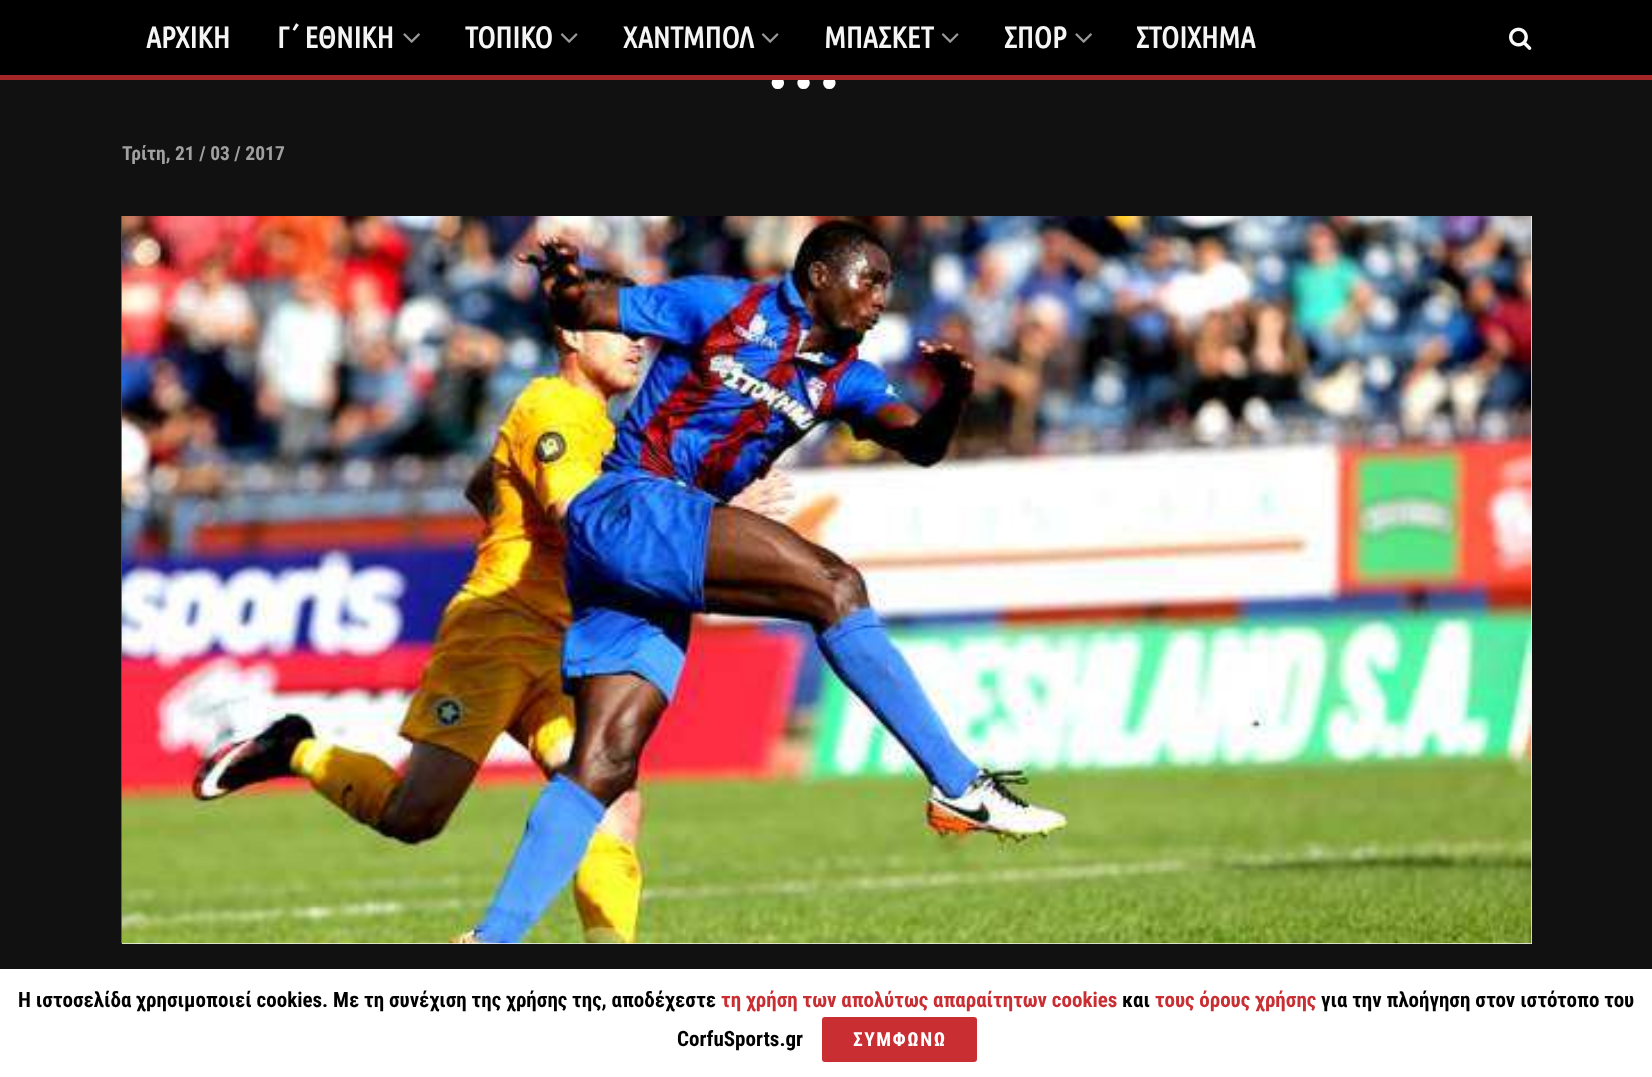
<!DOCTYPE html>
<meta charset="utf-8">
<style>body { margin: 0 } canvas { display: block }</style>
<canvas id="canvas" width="1652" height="1077"></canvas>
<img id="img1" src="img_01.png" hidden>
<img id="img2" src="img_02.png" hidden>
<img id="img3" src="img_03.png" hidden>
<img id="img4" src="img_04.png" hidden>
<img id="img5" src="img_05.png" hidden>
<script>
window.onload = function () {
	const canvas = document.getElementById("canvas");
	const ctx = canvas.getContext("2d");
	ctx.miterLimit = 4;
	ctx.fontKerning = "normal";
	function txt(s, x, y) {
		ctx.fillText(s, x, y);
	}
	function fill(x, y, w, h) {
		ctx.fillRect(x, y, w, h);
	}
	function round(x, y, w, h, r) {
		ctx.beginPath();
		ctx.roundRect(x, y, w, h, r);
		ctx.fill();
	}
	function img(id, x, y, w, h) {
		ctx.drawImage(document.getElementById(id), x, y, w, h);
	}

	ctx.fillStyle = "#111111";
	fill(0, 0, 1652, 1077);
	ctx.fillStyle = "#000000";
	fill(0, 0, 1652, 75);
	img("img1", 403, 33, 17, 10);
	img("img2", 560, 33, 18, 10);
	img("img2", 761, 33, 18, 10);
	img("img2", 941, 33, 18, 10);
	img("img1", 1075, 33, 17, 10);
	img("img3", 1509, 27, 23, 23);
	ctx.fillStyle = "#F7F7F7";
	fill(122, 216, 1410, 728);
	img("img4", 121, 216, 1, 728);
	img("img5", 121, 216, 1411, 728);
	ctx.fillStyle = "#FFFFFF";
	fill(0, 969, 1652, 108);
	ctx.fillStyle = "#C92E33";
	round(822, 1017, 155, 45, 3);
	ctx.font = "bold 30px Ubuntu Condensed";
	ctx.fillStyle = "#F5F5F5";
	txt("ΑΡΧΙΚΗ", 146, 48);
	txt("Γ΄ ΕΘΝΙΚΗ", 277, 48);
	txt("ΤΟΠΙΚΟ", 465, 48);
	txt("ΧΑΝΤΜΠΟΛ", 623, 48);
	txt("ΜΠΑΣΚΕΤ", 824, 48);
	txt("ΣΠΟΡ", 1004, 48);
	txt("ΣΤΟΙΧΗΜΑ", 1136, 48);
	ctx.letterSpacing = "-3px";
	ctx.font = "bold 84px Ubuntu Condensed";
	ctx.fillStyle = "#FFFFFF";
	txt("…", 770, 88);
	ctx.fillStyle = "#A52626";
	fill(0, 75, 1652, 5);
	ctx.letterSpacing = "0px";
	ctx.font = "bold 19.5px Roboto Condensed";
	ctx.fillStyle = "#A0A0A0";
	txt("Τρίτη, 21 / 03 / 2017", 122, 160);
	ctx.font = "bold 21px Roboto Condensed";
	ctx.fillStyle = "#000000";
	txt("Η ιστοσελίδα χρησιμοποιεί cookies. Με τη συνέχιση της χρήσης της, αποδέχεστε", 18, 1007);
	ctx.fillStyle = "#C92E33";
	txt("τη χρήση των απολύτως απαραίτητων cookies", 721, 1007);
	ctx.fillStyle = "#000000";
	txt("και", 1122, 1007);
	ctx.fillStyle = "#C92E33";
	txt("τους όρους χρήσης", 1155, 1007);
	ctx.fillStyle = "#000000";
	txt("για την πλοήγηση στον ιστότοπο του", 1321, 1007);
	txt("CorfuSports.gr", 677, 1046);
	ctx.letterSpacing = "1.5px";
	ctx.font = "bold 19.5px Roboto Condensed";
	ctx.fillStyle = "#FFFFFF";
	txt("ΣΥΜΦΩΝΩ", 853, 1046);
};
</script>
